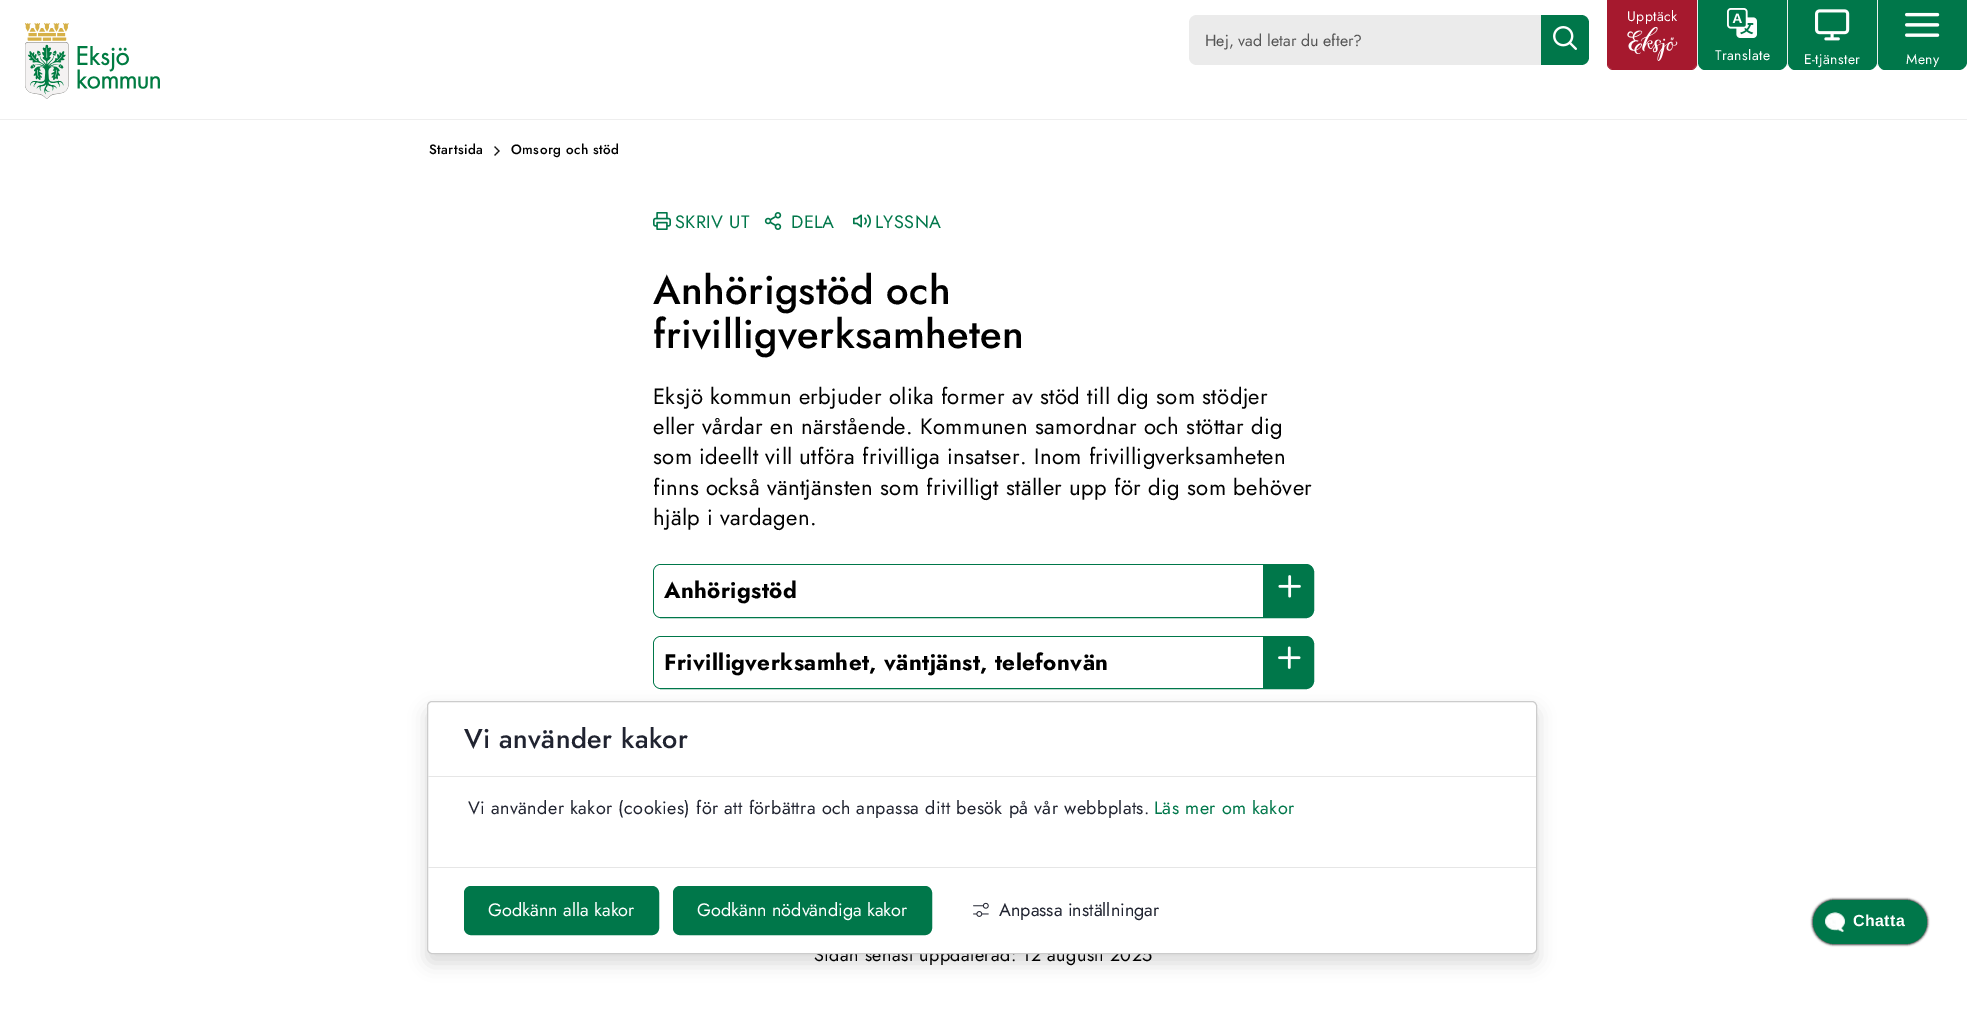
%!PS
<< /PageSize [1967 1014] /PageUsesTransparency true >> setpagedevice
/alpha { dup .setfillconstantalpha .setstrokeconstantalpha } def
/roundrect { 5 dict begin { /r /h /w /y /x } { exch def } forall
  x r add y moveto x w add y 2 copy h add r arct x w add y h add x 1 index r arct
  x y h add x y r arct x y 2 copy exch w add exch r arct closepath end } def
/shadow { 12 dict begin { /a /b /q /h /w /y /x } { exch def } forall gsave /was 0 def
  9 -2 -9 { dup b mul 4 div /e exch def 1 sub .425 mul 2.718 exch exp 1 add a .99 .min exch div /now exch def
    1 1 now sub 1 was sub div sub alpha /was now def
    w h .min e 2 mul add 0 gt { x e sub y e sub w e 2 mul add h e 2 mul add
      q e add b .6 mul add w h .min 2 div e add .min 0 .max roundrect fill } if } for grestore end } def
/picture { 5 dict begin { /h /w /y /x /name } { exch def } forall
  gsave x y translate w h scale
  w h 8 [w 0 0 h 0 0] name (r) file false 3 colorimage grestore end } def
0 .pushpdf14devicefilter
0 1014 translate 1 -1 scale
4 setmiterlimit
1 setgray
0 0 1967 1014 rectfill
0.922 setgray
newpath 1197 15 moveto 1541 15 lineto 1541 65 lineto 1197 65 lineto 1192.5 65 1189 61.5 1189 57 curveto 1189 23 lineto 1189 18.5 1192.5 15 1197 15 curveto closepath fill
/Jost-Regular [16 0 0 -16 0 0] selectfont
0.333 setgray
1205 46 moveto (Hej, vad letar du efter?) show
0 0.467 0.29 setrgbcolor
newpath 1541 15 moveto 1581 15 lineto 1585.5 15 1589 18.5 1589 23 curveto 1589 57 lineto 1589 61.5 1585.5 65 1581 65 curveto 1541 65 lineto closepath fill
(img1.rgb) 1553 26 24 24 picture
0.651 0.098 0.18 setrgbcolor
newpath 1608 0 moveto 1696 0 lineto 1696 64 lineto 1696 67 1694 69 1691 69 curveto 1613 69 lineto 1610 69 1608 67 1608 64 curveto closepath fill
newpath 1607 0 moveto 1697 0 lineto 1697 64 lineto 1697 67 1694 70 1691 70 curveto 1613 70 lineto 1610 70 1607 67 1607 64 curveto closepath 1608 0 moveto 1696 0 lineto 1696 64 lineto 1696 67 1694 69 1691 69 curveto 1613 69 lineto 1610 69 1608 67 1608 64 curveto closepath eofill
/Jost-Regular [14 0 0 -14 0 0] selectfont
1 setgray
1627 21 moveto 0.4 0 (Upptäck) ashow
(img2.rgb) 1627 27 51 34 picture
0 0.467 0.29 setrgbcolor
newpath 1698 0 moveto 1787 0 lineto 1787 62 lineto 1787 66 1783 70 1779 70 curveto 1705 70 lineto 1701 70 1698 66 1698 62 curveto closepath fill
0.933 setgray
1697 0 1 66 rectfill
(img3.rgb) 1727 8 30 30 picture
1 setgray
1715 60 moveto 0.4 0 (Translate) ashow
0 0.467 0.29 setrgbcolor
newpath 1788 0 moveto 1877 0 lineto 1877 62 lineto 1877 66 1873 70 1869 70 curveto 1795 70 lineto 1791 70 1788 66 1788 62 curveto closepath fill
0.933 setgray
1787 0 1 66 rectfill
(img4.rgb) 1815 9 35 32 picture
1 setgray
1804 64 moveto 0.4 0 (E-tjänster) ashow
0 0.467 0.29 setrgbcolor
newpath 1878 0 moveto 1967 0 lineto 1967 62 lineto 1967 66 1963 70 1959 70 curveto 1885 70 lineto 1881 70 1878 66 1878 62 curveto closepath fill
0.933 setgray
1877 0 1 66 rectfill
(img5.rgb) 1905 12 35 25 picture
1 setgray
1906 64 moveto 0.4 0 (Meny) ashow
/Jost-Medium [13.5 0 0 -13.5 0 0] selectfont
0 setgray
429 154 moveto 0.4 0 (Startsida) ashow
(img6.rgb) 494 146 6 10 picture
511 154 moveto 0.4 0 (Omsorg och stöd) ashow
(img7.rgb) 653 212 18 18 picture
/Jost-Regular [18 0 0 -18 0 0] selectfont
0 0.467 0.29 setrgbcolor
675 228 moveto 0.4 0 (SKRIV UT) ashow
(img8.rgb) 764 212 18 18 picture
791 228 moveto 0.4 0 (DELA) ashow
(img9.rgb) 853 214 18 14 picture
875 228 moveto 0.4 0 (LYSSNA) ashow
/Jost-Medium [40 0 0 -40 0 0] selectfont
0 setgray
653 304 moveto 0.4 0 (Anhörigstöd och) ashow
653 348 moveto 0.4 0 (frivilligverksamheten) ashow
/Jost-Regular [22 0 0 -22 0 0] selectfont
653 404 moveto 0.4 0 (Eksjö kommun erbjuder olika former av stöd till dig som stödjer) ashow
653 434 moveto 0.4 0 (eller vårdar en närstående. Kommunen samordnar och stöttar dig) ashow
653 464 moveto 0.4 0 (som ideellt vill utföra frivilliga insatser. Inom frivilligverksamheten) ashow
653 495 moveto 0.4 0 (finns också väntjänsten som frivilligt ställer upp för dig som behöver) ashow
653 525 moveto 0.4 0 (hjälp i vardagen.) ashow
0 0.467 0.29 setrgbcolor
653.5 564.5 660 53 7.5 roundrect gsave fill grestore
stroke
1 setgray
newpath 661 565 moveto 1263 565 lineto 1263 617 lineto 661 617 lineto 657 617 654 614 654 610 curveto 654 572 lineto 654 568 657 565 661 565 curveto closepath fill
/Jost-Bold [22.4 0 0 -22.4 0 0] selectfont
0 setgray
664 598 moveto 0.4 0 (Anhörigstöd) ashow
(img10.rgb) 1278 575 23 23 picture
0 0.467 0.29 setrgbcolor
653.5 636.5 660 52 7.5 roundrect gsave fill grestore
stroke
1 setgray
newpath 661 637 moveto 1263 637 lineto 1263 688 lineto 661 688 lineto 657 688 654 685 654 681 curveto 654 644 lineto 654 640 657 637 661 637 curveto closepath fill
0 setgray
664 670 moveto 0.4 0 (Frivilligverksamhet, väntjänst, telefonvän) ashow
(img11.rgb) 1278 646 23 23 picture
/Jost-Regular [18 0 0 -18 0 0] selectfont
814 961 moveto 0.4 0 (Sidan senast uppdaterad: 12 augusti 2025) ashow
0.933 setgray
0 119 1967 1 rectfill
(img12.rgb) 25 23 135 76 picture
0 setgray
427 710 1110 253 5 9 0.15 shadow
1 setgray
427.5 701.5 1109 252 4.5 roundrect gsave fill grestore
0.8 setgray
stroke
0.902 setgray
428 776 1108 1 rectfill
/Jost-Medium [27 0 0 -27 0 0] selectfont
0.125 0.137 0.188 setrgbcolor
464 748 moveto 0.4 0 (Vi använder kakor) ashow
/Jost-Regular [18 0 0 -18 0 0] selectfont
468 814 moveto 0.4 0 (Vi använder kakor \(cookies\) för att förbättra och anpassa ditt besök på vår webbplats.) ashow
0 0.467 0.29 setrgbcolor
1154 814 moveto 0.4 0 (Läs mer om kakor) ashow
0.902 setgray
428 867 1108 1 rectfill
0 0.467 0.29 setrgbcolor
464.5 886.5 194 48 6.5 roundrect gsave fill grestore
stroke
1 setgray
488 916 moveto (Godkänn alla kakor) show
0 0.467 0.29 setrgbcolor
673.5 886.5 258 48 6.5 roundrect gsave fill grestore
stroke
1 setgray
697 916 moveto (Godkänn nödvändiga kakor) show
(img13.rgb) 973 902 16 15 picture
0.125 0.137 0.188 setrgbcolor
999 916 moveto (Anpassa inställningar) show
0.267 setgray
1812 899 116 46 23 1 1 shadow
0 0.467 0.29 setrgbcolor
1813 900 114 44 22 roundrect fill
(img14.rgb) 1825 912 20 20 picture
/LiberationSans-Bold [16 0 0 -16 0 0] selectfont
1 setgray
1853 926 moveto 0.4 0 (Chatta) ashow
.poppdf14devicefilter showpage
